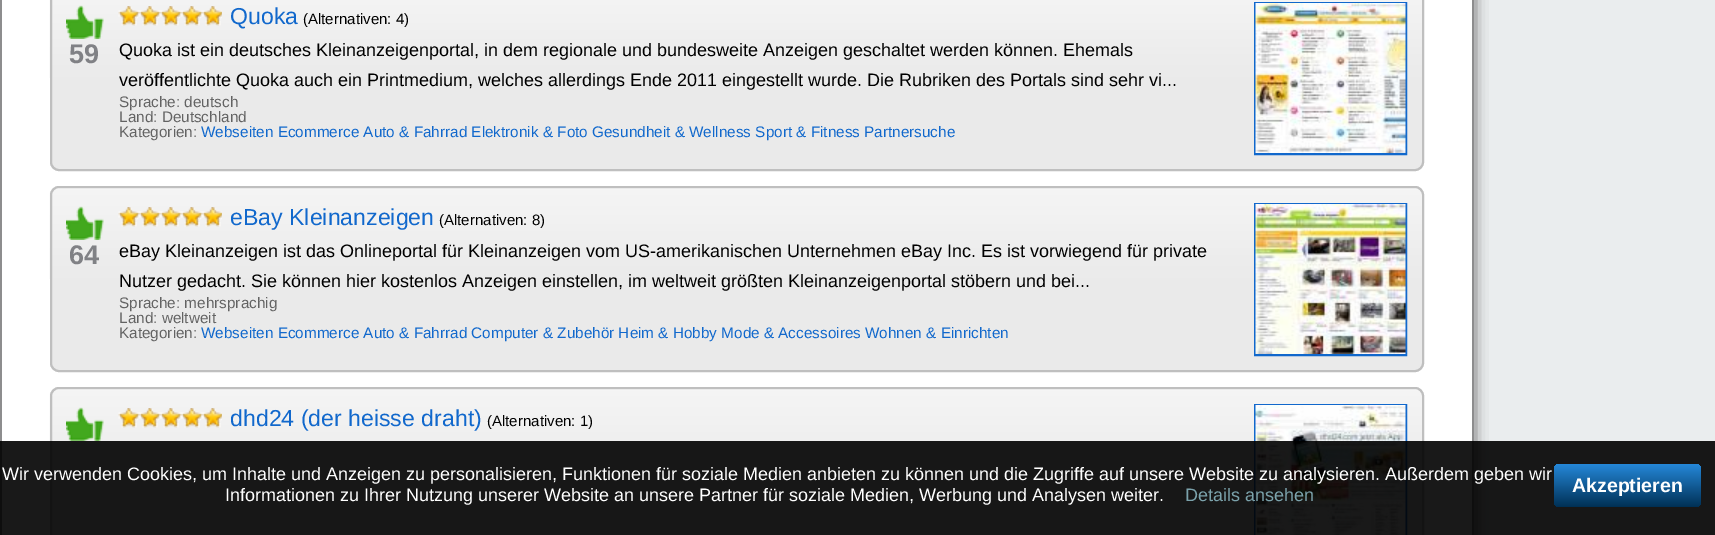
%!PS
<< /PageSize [1715 535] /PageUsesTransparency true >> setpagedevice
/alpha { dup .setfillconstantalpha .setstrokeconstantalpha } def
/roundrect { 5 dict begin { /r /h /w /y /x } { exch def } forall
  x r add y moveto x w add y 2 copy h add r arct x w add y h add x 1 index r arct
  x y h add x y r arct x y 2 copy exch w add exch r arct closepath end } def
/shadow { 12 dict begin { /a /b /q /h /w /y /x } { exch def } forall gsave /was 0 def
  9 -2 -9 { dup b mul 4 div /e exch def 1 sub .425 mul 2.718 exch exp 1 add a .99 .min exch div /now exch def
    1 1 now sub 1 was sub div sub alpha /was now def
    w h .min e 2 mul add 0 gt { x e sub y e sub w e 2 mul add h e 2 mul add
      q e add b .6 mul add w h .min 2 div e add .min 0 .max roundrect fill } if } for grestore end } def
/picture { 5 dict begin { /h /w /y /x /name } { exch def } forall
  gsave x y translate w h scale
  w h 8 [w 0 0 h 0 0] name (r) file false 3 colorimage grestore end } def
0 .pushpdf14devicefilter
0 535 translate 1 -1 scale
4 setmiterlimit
0.918 0.929 0.933 setrgbcolor
0 0 1715 535 rectfill
0.169 setgray
2 -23 1470 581 0 7.5 1 shadow
1 setgray
2 0 1470 535 rectfill
0.918 setgray
50 -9 1374 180 9 roundrect fill
(img1.rgb) 49 0 1373 78 picture
0.749 setgray
2 setlinewidth
51 -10 1372 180 8 roundrect stroke
(img2.rgb) 66 5 38 34 picture
/LiberationSans-Bold [27 0 0 -27 0 0] selectfont
0.502 0.506 0.522 setrgbcolor
69 63 moveto (59) show
(img3.rgb) 118 7 104 19 picture
(img4.rgb) 118 6 104 20 picture
/LiberationSans-Regular [23.1 0 0 -23.1 0 0] selectfont
0.067 0.408 0.8 setrgbcolor
230 24 moveto (Quoka) show
/LiberationSans-Regular [15 0 0 -15 0 0] selectfont
0 setgray
303 24 moveto (\(Alternativen: 4\)) show
0.067 0.408 0.8 setrgbcolor
1255 3 151 151 rectstroke
(img5.rgb) 1255 3 151 150 picture
/LiberationSans-Regular [18 0 0 -18 0 0] selectfont
0 setgray
119 56 moveto (Quoka ist ein deutsches Kleinanzeigenportal, in dem regionale und bundesweite Anzeigen geschaltet werden können. Ehemals) show
119 86 moveto (veröffentlichte Quoka auch ein Printmedium, welches allerdings Ende 2011 eingestellt wurde. Die Rubriken des Portals sind sehr vi...) show
/LiberationSans-Regular [15.3 0 0 -15.3 0 0] selectfont
0.388 setgray
119 107 moveto (Sprache: deutsch) show
119 122 moveto (Land: Deutschland) show
119 137 moveto (Kategorien:) show
0.067 0.408 0.8 setrgbcolor
201 137 moveto (Webseiten Ecommerce Auto & Fahrrad Elektronik & Foto Gesundheit & Wellness Sport & Fitness Partnersuche) show
0.918 setgray
50 186 1374 186 9 roundrect fill
(img6.rgb) 49 187 1374 92 picture
0.749 setgray
51 187 1372 184 8 roundrect stroke
(img2.rgb) 66 206 38 34 picture
/LiberationSans-Bold [27 0 0 -27 0 0] selectfont
0.502 0.506 0.522 setrgbcolor
69 264 moveto (64) show
(img7.rgb) 118 208 104 19 picture
(img8.rgb) 118 207 104 20 picture
/LiberationSans-Regular [23.1 0 0 -23.1 0 0] selectfont
0.067 0.408 0.8 setrgbcolor
230 225 moveto (eBay Kleinanzeigen) show
/LiberationSans-Regular [15 0 0 -15 0 0] selectfont
0 setgray
439 225 moveto (\(Alternativen: 8\)) show
0.067 0.408 0.8 setrgbcolor
1255 204 151 151 rectstroke
(img9.rgb) 1255 204 151 150 picture
/LiberationSans-Regular [18 0 0 -18 0 0] selectfont
0 setgray
119 257 moveto (eBay Kleinanzeigen ist das Onlineportal für Kleinanzeigen vom US-amerikanischen Unternehmen eBay Inc. Es ist vorwiegend für private) show
119 287 moveto (Nutzer gedacht. Sie können hier kostenlos Anzeigen einstellen, im weltweit größten Kleinanzeigenportal stöbern und bei...) show
/LiberationSans-Regular [15.3 0 0 -15.3 0 0] selectfont
0.388 setgray
119 308 moveto (Sprache: mehrsprachig) show
119 323 moveto (Land: weltweit) show
119 338 moveto (Kategorien:) show
0.067 0.408 0.8 setrgbcolor
201 338 moveto (Webseiten Ecommerce Auto & Fahrrad Computer & Zubehör Heim & Hobby Mode & Accessoires Wohnen & Einrichten) show
0.918 setgray
50 387 1374 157 9 roundrect fill
(img6.rgb) 49 388 1374 92 picture
0.749 setgray
51 388 1372 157 8 roundrect stroke
(img2.rgb) 66 407 38 34 picture
(img10.rgb) 118 409 104 19 picture
(img11.rgb) 118 408 104 20 picture
/LiberationSans-Regular [23.1 0 0 -23.1 0 0] selectfont
0.067 0.408 0.8 setrgbcolor
230 426 moveto (dhd24 \(der heisse draht\)) show
/LiberationSans-Regular [15 0 0 -15 0 0] selectfont
0 setgray
487 426 moveto (\(Alternativen: 1\)) show
0.067 0.408 0.8 setrgbcolor
1255 405 151 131 rectstroke
(img12.rgb) 1255 405 151 130 picture
0.9 alpha
0 setgray
0 441 1715 94 rectfill
/LiberationSans-Regular [18 0 0 -18 0 0] selectfont
1 alpha
1 setgray
2 480 moveto (Wir verwenden Cookies, um Inhalte und Anzeigen zu personalisieren, Funktionen für soziale Medien anbieten zu können und die Zugriffe auf unsere Website zu analysieren. Außerdem geben wir) show
225 501 moveto (Informationen zu Ihrer Nutzung unserer Website an unsere Partner für soziale Medien, Werbung und Analysen weiter.) show
0.482 0.635 0.671 setrgbcolor
1185 501 moveto (Details ansehen) show
gsave 1554 464 147 43 5 roundrect clip newpath
<< /ShadingType 2 /ColorSpace /DeviceRGB /Coords [1554 464 1554 507] /Extend [true true] /Function << /FunctionType 2 /Domain [0 1] /C0 [0.145 0.533 0.851] /C1 [0 0.188 0.333] /N 1 >> >> shfill grestore
/LiberationSans-Bold [19.5 0 0 -19.5 0 0] selectfont
1 setgray
1572 492 moveto (Akzeptieren) show
.poppdf14devicefilter showpage
